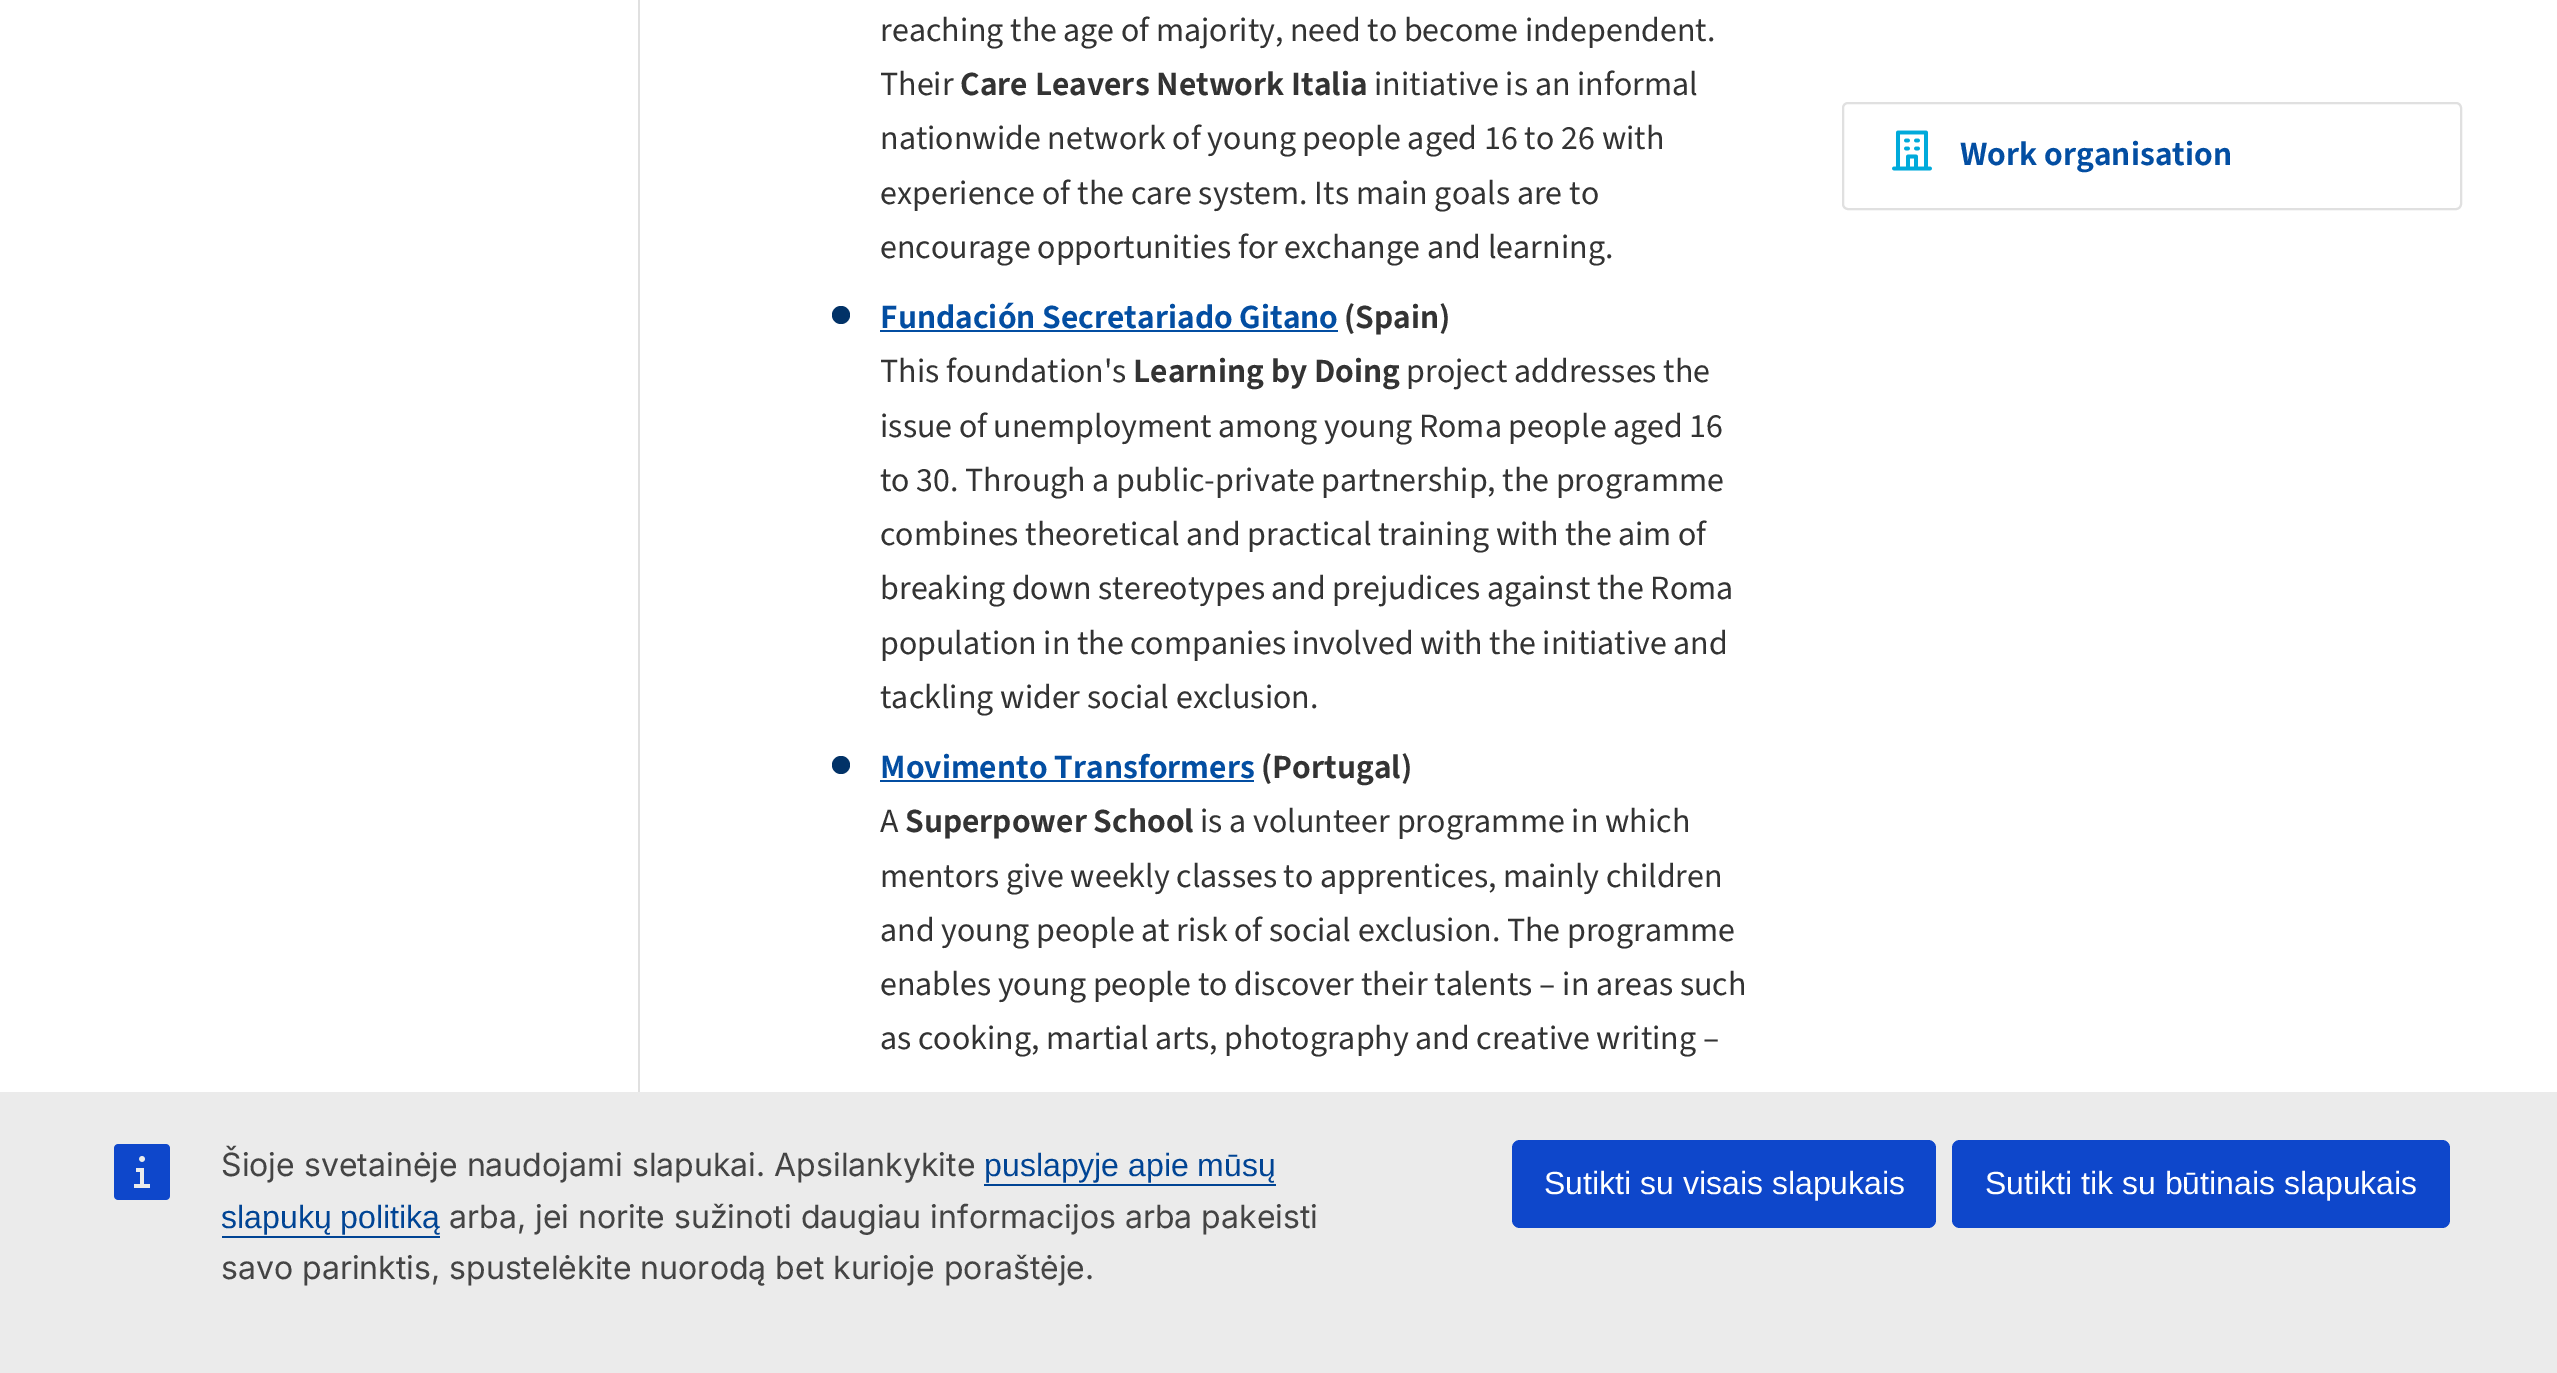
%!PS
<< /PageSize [2557 1373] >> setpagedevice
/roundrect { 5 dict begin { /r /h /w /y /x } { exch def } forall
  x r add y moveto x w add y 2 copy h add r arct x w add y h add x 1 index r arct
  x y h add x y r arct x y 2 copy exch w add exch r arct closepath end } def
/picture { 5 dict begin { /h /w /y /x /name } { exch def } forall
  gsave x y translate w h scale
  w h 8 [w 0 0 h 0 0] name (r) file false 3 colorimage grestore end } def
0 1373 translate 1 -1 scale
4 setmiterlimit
1 setgray
0 0 2557 1373 rectfill
0.878 setgray
638 0 2 1092 rectfill
/SourceSans3-Regular [33.9 0 0 -33.9 0 0] selectfont
0.2 setgray
880 41 moveto -0.25 0 32 (reaching the age of majority, need to become independent.) widthshow
880 95 moveto (Their) show
/SourceSans3-SemiBold [33.9 0 0 -33.9 0 0] selectfont
960 95 moveto (Care Leavers Network Italia) show
/SourceSans3-Regular [33.9 0 0 -33.9 0 0] selectfont
1374 95 moveto (initiative is an informal) show
880 149 moveto (nationwide network of young people aged 16 to 26 with) show
880 204 moveto (experience of the care system. Its main goals are to) show
880 258 moveto (encourage opportunities for exchange and learning.) show
0.008 0.196 0.404 setrgbcolor
newpath 841 315 9 0 360 arc closepath fill
/SourceSans3-SemiBold [33.9 0 0 -33.9 0 0] selectfont
0.012 0.306 0.635 setrgbcolor
880 328 moveto (Fundación Secretariado Gitano) show
880 330 458 2 rectfill
0.2 setgray
1344 328 moveto (\(Spain\)) show
/SourceSans3-Regular [33.9 0 0 -33.9 0 0] selectfont
880 382 moveto (This foundation's) show
/SourceSans3-SemiBold [33.9 0 0 -33.9 0 0] selectfont
1133 382 moveto (Learning by Doing) show
/SourceSans3-Regular [33.9 0 0 -33.9 0 0] selectfont
1406 382 moveto (project addresses the) show
880 437 moveto -0.25 0 32 (issue of unemployment among young Roma people aged 16) widthshow
880 491 moveto -0.25 0 32 (to 30. Through a public-private partnership, the programme) widthshow
880 545 moveto -0.25 0 32 (combines theoretical and practical training with the aim of) widthshow
880 599 moveto -0.25 0 32 (breaking down stereotypes and prejudices against the Roma) widthshow
880 654 moveto -0.25 0 32 (population in the companies involved with the initiative and) widthshow
880 708 moveto (tackling wider social exclusion.) show
0.008 0.196 0.404 setrgbcolor
newpath 841 765 9 0 360 arc closepath fill
/SourceSans3-SemiBold [33.9 0 0 -33.9 0 0] selectfont
0.012 0.306 0.635 setrgbcolor
880 778 moveto (Movimento Transformers) show
880 780 374 2 rectfill
0.2 setgray
1261 778 moveto (\(Portugal\)) show
/SourceSans3-Regular [33.9 0 0 -33.9 0 0] selectfont
880 832 moveto (A) show
/SourceSans3-SemiBold [33.9 0 0 -33.9 0 0] selectfont
905 832 moveto (Superpower School) show
/SourceSans3-Regular [33.9 0 0 -33.9 0 0] selectfont
1200 832 moveto (is a volunteer programme in which) show
880 887 moveto -0.25 0 32 (mentors give weekly classes to apprentices, mainly children) widthshow
880 941 moveto -0.1 0 32 (and young people at risk of social exclusion. The programme) widthshow
880 995 moveto (enables young people to discover their talents – in areas such) show
880 1049 moveto -0.25 0 32 (as cooking, martial arts, photography and creative writing –) widthshow
0.878 setgray
2 setlinewidth
1843 103 618 106 5 roundrect stroke
(img1.rgb) 1892 130 40 41 picture
/SourceSans3-SemiBold [33.9 0 0 -33.9 0 0] selectfont
0.012 0.306 0.635 setrgbcolor
1960 165 moveto (Work organisation) show
0.922 setgray
0 1092 2557 281 rectfill
(img2.rgb) 114 1144 56 56 picture
/Inter-Regular [32 0 0 -32 0 0] selectfont
0.267 setgray
221 1176 moveto (Šioje svetainėje naudojami slapukai. Apsilankykite) show
/LiberationSans-Regular [32 0 0 -32 0 0] selectfont
0 0.267 0.58 setrgbcolor
984 1176 moveto (puslapyje apie mūsų) show
984 1184 292 2 rectfill
221 1228 moveto (slapukų politiką) show
222 1236 218 2 rectfill
/Inter-Regular [32 0 0 -32 0 0] selectfont
0.267 setgray
449 1228 moveto (arba, jei norite sužinoti daugiau informacijos arba pakeisti) show
221 1279 moveto (savo parinktis, spustelėkite nuorodą bet kurioje poraštėje.) show
0.055 0.278 0.796 setrgbcolor
1512 1140 424 88 8 roundrect fill
/LiberationSans-Regular [32 0 0 -32 0 0] selectfont
1 setgray
1544 1194 moveto (Sutikti su visais slapukais) show
0.055 0.278 0.796 setrgbcolor
1952 1140 498 88 8 roundrect fill
1 setgray
1985 1194 moveto (Sutikti tik su būtinais slapukais) show
showpage
